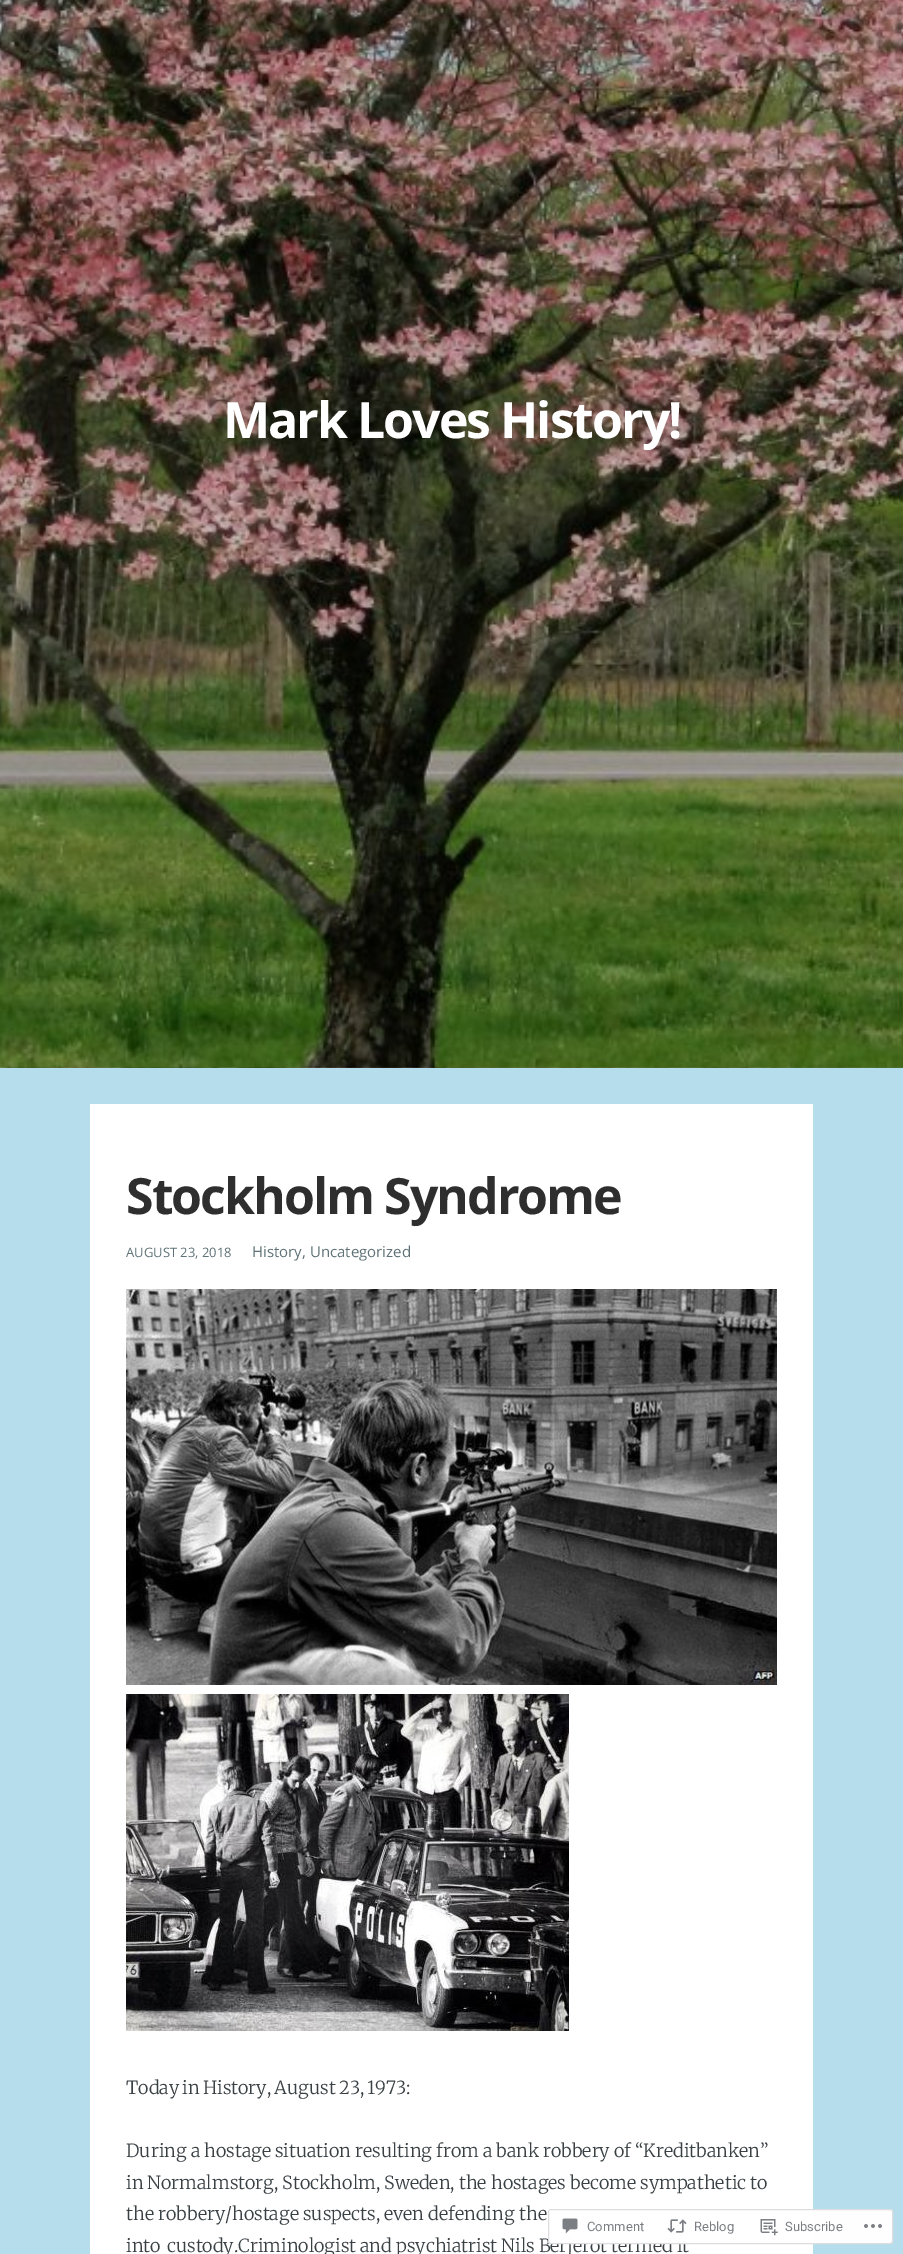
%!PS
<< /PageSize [903 2254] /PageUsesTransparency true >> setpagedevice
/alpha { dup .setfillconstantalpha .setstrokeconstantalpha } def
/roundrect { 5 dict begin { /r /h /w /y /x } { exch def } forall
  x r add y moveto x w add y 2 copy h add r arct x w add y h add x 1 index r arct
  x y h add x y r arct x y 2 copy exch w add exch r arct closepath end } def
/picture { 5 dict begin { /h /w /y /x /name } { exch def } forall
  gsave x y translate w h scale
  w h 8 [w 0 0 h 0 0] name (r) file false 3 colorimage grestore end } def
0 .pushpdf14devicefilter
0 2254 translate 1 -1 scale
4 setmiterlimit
0.714 0.867 0.925 setrgbcolor
0 0 903 2254 rectfill
(img1.rgb) 0 0 903 1068 picture
/OpenSans-Bold [50 0 0 -50 0 0] selectfont
1 setgray
223 438 moveto -2 0 (Mark Loves History!) ashow
90 1104 723 1150 rectfill
0.18 setgray
126 1214 moveto -2 0 (Stockholm Syndrome) ashow
/OpenSans-Regular [13 0 0 -13 0 0] selectfont
0.369 0.447 0.467 setrgbcolor
126 1257 moveto (AUGUST 23, 2018) show
/OpenSans-Regular [15 0 0 -15 0 0] selectfont
252 1257 moveto (History, Uncategorized) show
(img2.rgb) 126 1289 651 396 picture
(img3.rgb) 126 1694 443 337 picture
/Merriweather-Light [18 0 0 -18 0 0] selectfont
0.227 0.255 0.271 setrgbcolor
126 2094 moveto -1 0 32 (Today in History, August 23, 1973:) widthshow
126 2157 moveto -0.25 0 32 (During a hostage situation resulting from a bank robbery of “Kreditbanken”) widthshow
126 2189 moveto -0.25 0 32 (in Normalmstorg, Stockholm, Sweden, the hostages become sympathetic to) widthshow
126 2220 moveto (the robbery/hostage suspects, even defending the) show
126 2252 moveto 2 0 32 (into custody.) widthshow
238 2252 moveto -0.25 0 32 (Criminologist and psychiatrist Nils Berjerot termed it) widthshow
0.98 alpha
1 setgray
548 2209 345 35 3 roundrect fill
0.863 0.863 0.871 setrgbcolor
548.5 2209.5 344 34 2.5 roundrect stroke
1 alpha
(img4.rgb) 562 2218 16 16 picture
/Roboto-Regular [13 0 0 -13 0 0] selectfont
0.482 0.498 0.518 setrgbcolor
587 2231 moveto (Comment) show
(img5.rgb) 667 2219 20 14 picture
694 2231 moveto (Reblog) show
(img6.rgb) 760 2219 18 17 picture
785 2231 moveto (Subscribe) show
(img7.rgb) 864 2224 18 4 picture
.poppdf14devicefilter showpage
